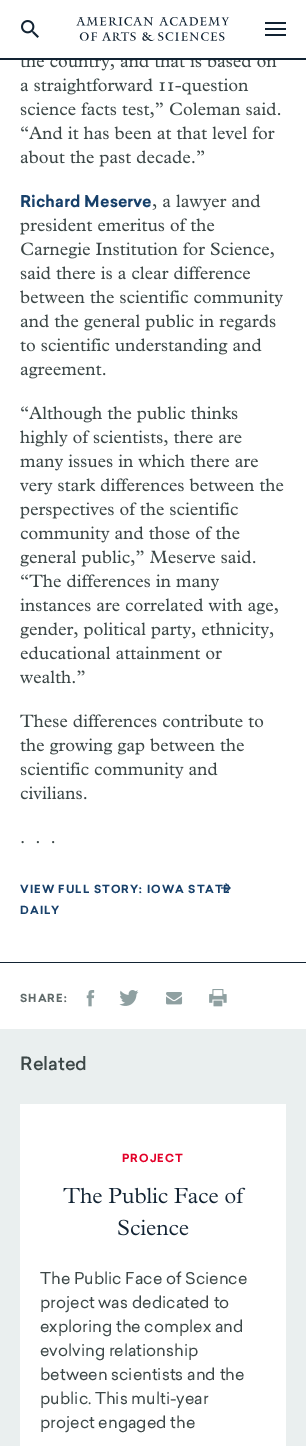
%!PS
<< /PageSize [306 1446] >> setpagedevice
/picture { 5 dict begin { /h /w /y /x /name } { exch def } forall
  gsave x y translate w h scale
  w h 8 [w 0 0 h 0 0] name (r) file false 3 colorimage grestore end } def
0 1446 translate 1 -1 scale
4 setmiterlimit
1 setgray
0 0 306 1446 rectfill
0.071 0.137 0.2 setrgbcolor
0 58 306 2 rectfill
(img1.rgb) 21 20 18 18 picture
(img2.rgb) 76 17 154 24 picture
(img3.rgb) 265 22 21 14 picture
(img4.rgb) 21 60 256 11 picture
(img5.rgb) 20 78 229 17 picture
(img6.rgb) 20 102 261 16 picture
(img7.rgb) 21 126 254 14 picture
(img8.rgb) 20 150 185 17 picture
/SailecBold-Regular [16 0 0 -16 0 0] selectfont
0.09 0.251 0.416 setrgbcolor
20 207 moveto (Richard Meserve) show
(img9.rgb) 152 194 109 17 picture
(img10.rgb) 20 218 195 17 picture
(img11.rgb) 21 242 253 17 picture
(img12.rgb) 20 266 230 14 picture
(img13.rgb) 20 290 263 17 picture
(img14.rgb) 20 314 256 17 picture
(img15.rgb) 20 338 242 17 picture
(img16.rgb) 20 365 86 14 picture
(img17.rgb) 21 406 217 17 picture
(img18.rgb) 20 430 222 17 picture
(img19.rgb) 20 454 238 17 picture
(img20.rgb) 20 478 264 17 picture
(img21.rgb) 20 502 218 17 picture
(img22.rgb) 20 526 220 17 picture
(img23.rgb) 20 550 236 17 picture
(img24.rgb) 21 574 199 17 picture
(img25.rgb) 20 598 258 17 picture
(img26.rgb) 20 622 254 17 picture
(img27.rgb) 20 646 202 14 picture
(img28.rgb) 20 670 65 14 picture
(img29.rgb) 20 714 244 14 picture
(img30.rgb) 20 738 224 17 picture
(img31.rgb) 20 762 198 17 picture
(img32.rgb) 20 786 67 14 picture
(img33.rgb) 21 841 34 3 picture
(img34.rgb) 221 883 10 10 picture
/SailecBold-Regular [11 0 0 -11 0 0] selectfont
20 893 moveto 1 0 (VIEW FULL STORY: IOWA STATE) ashow
20 914 moveto 1 0 (DAILY) ashow
0.071 0.137 0.2 setrgbcolor
0 962 306 1 rectfill
0.373 0.412 0.412 setrgbcolor
20 1002 moveto 1 0 (SHARE:) ashow
(img35.rgb) 86 990 9 17 picture
(img36.rgb) 119 990 20 16 picture
(img37.rgb) 166 992 17 13 picture
(img38.rgb) 209 989 18 18 picture
0.918 0.937 0.937 setrgbcolor
0 1029 306 417 rectfill
/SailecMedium-Regular [18 0 0 -18 0 0] selectfont
0.235 0.278 0.278 setrgbcolor
20 1070 moveto (Related) show
1 setgray
20 1104 266 342 rectfill
/SailecBold-Regular [11 0 0 -11 0 0] selectfont
0.89 0 0.157 setrgbcolor
122 1162 moveto 1 0 (PROJECT) ashow
(img39.rgb) 63 1187 183 17 picture
(img40.rgb) 118 1219 71 17 picture
/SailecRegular-Regular [16 0 0 -16 0 0] selectfont
0.235 0.278 0.278 setrgbcolor
40 1284 moveto (The Public Face of Science) show
40 1308 moveto (project was dedicated to) show
40 1332 moveto (exploring the complex and) show
40 1356 moveto (evolving relationship) show
40 1380 moveto (between scientists and the) show
40 1404 moveto (public. This multi-year) show
40 1428 moveto (project engaged the) show
showpage
